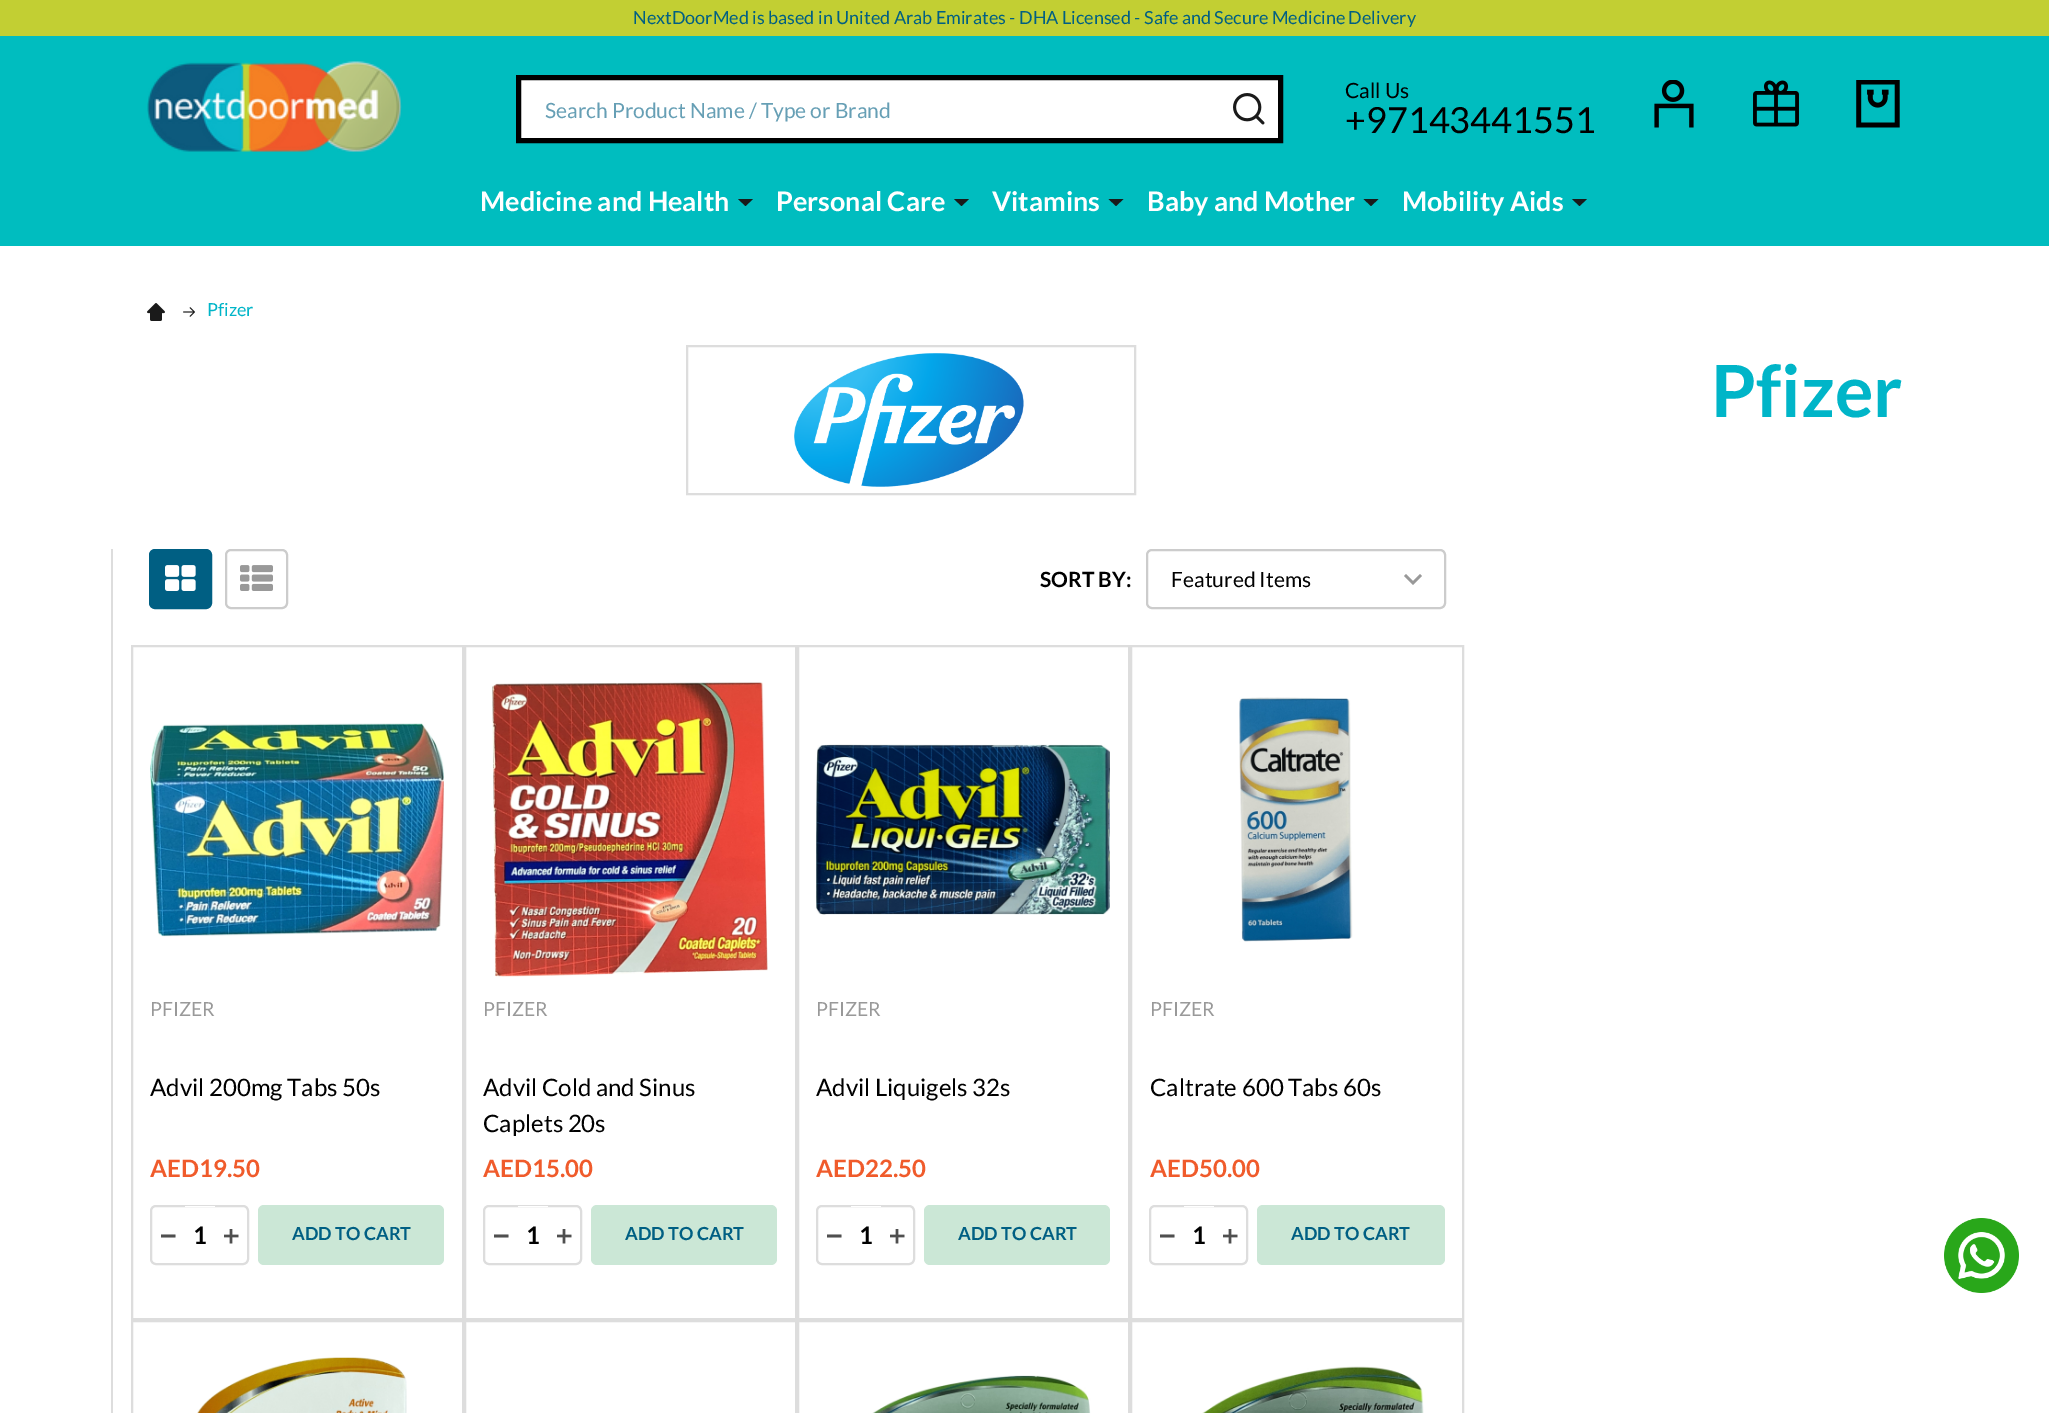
%!PS
<< /PageSize [2049 1413] >> setpagedevice
/roundrect { 5 dict begin { /r /h /w /y /x } { exch def } forall
  x r add y moveto x w add y 2 copy h add r arct x w add y h add x 1 index r arct
  x y h add x y r arct x y 2 copy exch w add exch r arct closepath end } def
/picture { 5 dict begin { /h /w /y /x /name } { exch def } forall
  gsave x y translate w h scale
  w h 8 [w 0 0 h 0 0] name (r) file false 3 colorimage grestore end } def
0 1413 translate 1 -1 scale
4 setmiterlimit
1 setgray
0 0 2049 1413 rectfill
0 0.741 0.749 setrgbcolor
0 36 2049 210 rectfill
0.761 0.812 0.2 setrgbcolor
0 0 2049 36 rectfill
/Lato-Regular [18 0 0 -18 0 0] selectfont
0 0.373 0.514 setrgbcolor
633 24 moveto (NextDoorMed is based in United Arab Emirates - DHA Licensed - Safe and Secure Medicine Delivery) show
(img1.rgb) 147 61 255 91 picture
1 setgray
newpath 518.5 77.5 moveto 1280.5 77.5 lineto 1280.5 140.5 lineto 518.5 140.5 lineto closepath gsave fill grestore
0 setgray
5 setlinewidth
stroke
/Lato-Regular [21 0 0 -21 0 0] selectfont
0.4 0.624 0.71 setrgbcolor
545 118 moveto (Search Product Name / Type or Brand) show
(img2.rgb) 1233 93 32 32 picture
0 setgray
1345 98 moveto (Call Us) show
/Lato-Regular [36 0 0 -36 0 0] selectfont
1345 133 moveto (+97143441551) show
(img3.rgb) 1654 80 40 48 picture
(img4.rgb) 1753 80 46 47 picture
(img5.rgb) 1856 80 44 48 picture
/Lato-Bold [27 0 0 -27 0 0] selectfont
1 setgray
480 211 moveto (Medicine and Health) show
0.102 setgray
newpath 738 199 moveto 745.5 206 lineto 753 199 lineto closepath fill
1 setgray
776 211 moveto (Personal Care) show
0.102 setgray
newpath 954 199 moveto 961.5 206 lineto 969 199 lineto closepath fill
1 setgray
992 211 moveto (Vitamins) show
0.102 setgray
newpath 1108.5 199 moveto 1116 206 lineto 1123.5 199 lineto closepath fill
1 setgray
1147 211 moveto (Baby and Mother) show
0.102 setgray
newpath 1363.5 199 moveto 1371 206 lineto 1378.5 199 lineto closepath fill
1 setgray
1402 211 moveto (Mobility Aids) show
0.102 setgray
newpath 1572 199 moveto 1579.5 206 lineto 1587 199 lineto closepath fill
(img6.rgb) 147 303 18 18 picture
(img7.rgb) 183 307 12 10 picture
/Lato-Regular [18 0 0 -18 0 0] selectfont
0 0.71 0.784 setrgbcolor
207 316 moveto (Pfizer) show
0.867 setgray
2 setlinewidth
687 346 448 148 rectstroke
(img8.rgb) 794 353 230 134 picture
/Lato-Bold [72 0 0 -72 0 0] selectfont
0 0.71 0.784 setrgbcolor
1711 417 moveto (Pfizer) show
0.867 setgray
111 549 2 864 rectfill
0 0.373 0.514 setrgbcolor
150 550 61 58 5 roundrect gsave fill grestore
stroke
(img9.rgb) 165 565 31 26 picture
0.8 setgray
226 550 61 58 5 roundrect stroke
(img10.rgb) 240 565 33 26 picture
/Lato-Bold [21 0 0 -21 0 0] selectfont
0 setgray
1040 587 moveto (SORT BY:) show
0.6 setgray
newpath 1420 574 moveto 1413 581 lineto 1406 574 lineto 1404 576 lineto 1413 585 lineto 1422 576 lineto closepath fill
0.8 setgray
1147 550 298 58 5 roundrect stroke
/Lato-Regular [21 0 0 -21 0 0] selectfont
0 setgray
1171 587 moveto (Featured Items) show
0.867 setgray
132 646 331 673 rectstroke
(img11.rgb) 150 723 294 214 picture
/Lato-Regular [19.5 0 0 -19.5 0 0] selectfont
0.6 setgray
150 1016 moveto (PFIZER) show
/Lato-Regular [24 0 0 -24 0 0] selectfont
0 setgray
150 1096 moveto (Advil 200mg Tabs 50s) show
/Lato-Bold [24 0 0 -24 0 0] selectfont
0.941 0.357 0.169 setrgbcolor
150 1177 moveto (AED19.50) show
0.867 setgray
151 1206 97 58 5 roundrect stroke
gsave
161 1229 15 15 rectclip
0.31 setgray
newpath 160.5 1237.5 moveto 160.5 1234.5 lineto 175.5 1234.5 lineto 175.5 1237.5 lineto fill
grestore
1 setgray
185 1206 30 1 rectfill
0 setgray
193 1244 moveto (1) show
(img12.rgb) 224 1229 15 15 picture
0.796 0.906 0.839 setrgbcolor
258 1205 186 60 6 roundrect fill
/Lato-Bold [18 0 0 -18 0 0] selectfont
0 0.373 0.514 setrgbcolor
292 1240 moveto (ADD TO CART) show
0.867 setgray
465 646 331 673 rectstroke
(img13.rgb) 492 682 276 295 picture
/Lato-Regular [19.5 0 0 -19.5 0 0] selectfont
0.6 setgray
483 1016 moveto (PFIZER) show
/Lato-Regular [24 0 0 -24 0 0] selectfont
0 setgray
483 1096 moveto (Advil Cold and Sinus) show
483 1132 moveto (Caplets 20s) show
/Lato-Bold [24 0 0 -24 0 0] selectfont
0.941 0.357 0.169 setrgbcolor
483 1177 moveto (AED15.00) show
0.867 setgray
484 1206 97 58 5 roundrect stroke
gsave
494 1229 15 15 rectclip
0.31 setgray
newpath 493.5 1237.5 moveto 493.5 1234.5 lineto 508.5 1234.5 lineto 508.5 1237.5 lineto fill
grestore
1 setgray
518 1206 30 1 rectfill
0 setgray
526 1244 moveto (1) show
(img12.rgb) 557 1229 15 15 picture
0.796 0.906 0.839 setrgbcolor
591 1205 186 60 6 roundrect fill
/Lato-Bold [18 0 0 -18 0 0] selectfont
0 0.373 0.514 setrgbcolor
625 1240 moveto (ADD TO CART) show
0.867 setgray
798 646 331 673 rectstroke
(img14.rgb) 816 744 294 171 picture
/Lato-Regular [19.5 0 0 -19.5 0 0] selectfont
0.6 setgray
816 1016 moveto (PFIZER) show
/Lato-Regular [24 0 0 -24 0 0] selectfont
0 setgray
816 1096 moveto (Advil Liquigels 32s) show
/Lato-Bold [24 0 0 -24 0 0] selectfont
0.941 0.357 0.169 setrgbcolor
816 1177 moveto (AED22.50) show
0.867 setgray
817 1206 97 58 5 roundrect stroke
gsave
827 1229 15 15 rectclip
0.31 setgray
newpath 826.5 1237.5 moveto 826.5 1234.5 lineto 841.5 1234.5 lineto 841.5 1237.5 lineto fill
grestore
1 setgray
851 1206 30 1 rectfill
0 setgray
859 1244 moveto (1) show
(img12.rgb) 890 1229 15 15 picture
0.796 0.906 0.839 setrgbcolor
924 1205 186 60 6 roundrect fill
/Lato-Bold [18 0 0 -18 0 0] selectfont
0 0.373 0.514 setrgbcolor
958 1240 moveto (ADD TO CART) show
0.867 setgray
1131 646 332 673 rectstroke
(img15.rgb) 1239 697 114 245 picture
/Lato-Regular [19.5 0 0 -19.5 0 0] selectfont
0.6 setgray
1150 1016 moveto (PFIZER) show
/Lato-Regular [24 0 0 -24 0 0] selectfont
0 setgray
1150 1096 moveto (Caltrate 600 Tabs 60s) show
/Lato-Bold [24 0 0 -24 0 0] selectfont
0.941 0.357 0.169 setrgbcolor
1150 1177 moveto (AED50.00) show
0.867 setgray
1150 1206 97 58 5 roundrect stroke
gsave
1160 1229 15 15 rectclip
0.31 setgray
newpath 1159.5 1237.5 moveto 1159.5 1234.5 lineto 1174.5 1234.5 lineto 1174.5 1237.5 lineto fill
grestore
1 setgray
1184 1206 30 1 rectfill
0 setgray
1192 1244 moveto (1) show
(img12.rgb) 1223 1229 15 15 picture
0.796 0.906 0.839 setrgbcolor
1257 1205 188 60 6 roundrect fill
/Lato-Bold [18 0 0 -18 0 0] selectfont
0 0.373 0.514 setrgbcolor
1291 1240 moveto (ADD TO CART) show
0.867 setgray
132 1321 331 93 rectstroke
(img16.rgb) 197 1357 210 56 picture
465 1321 331 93 rectstroke
798 1321 331 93 rectstroke
(img17.rgb) 872 1375 219 38 picture
1131 1321 332 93 rectstroke
(img18.rgb) 1202 1366 222 47 picture
(img19.rgb) 1944 1218 75 75 picture
showpage
